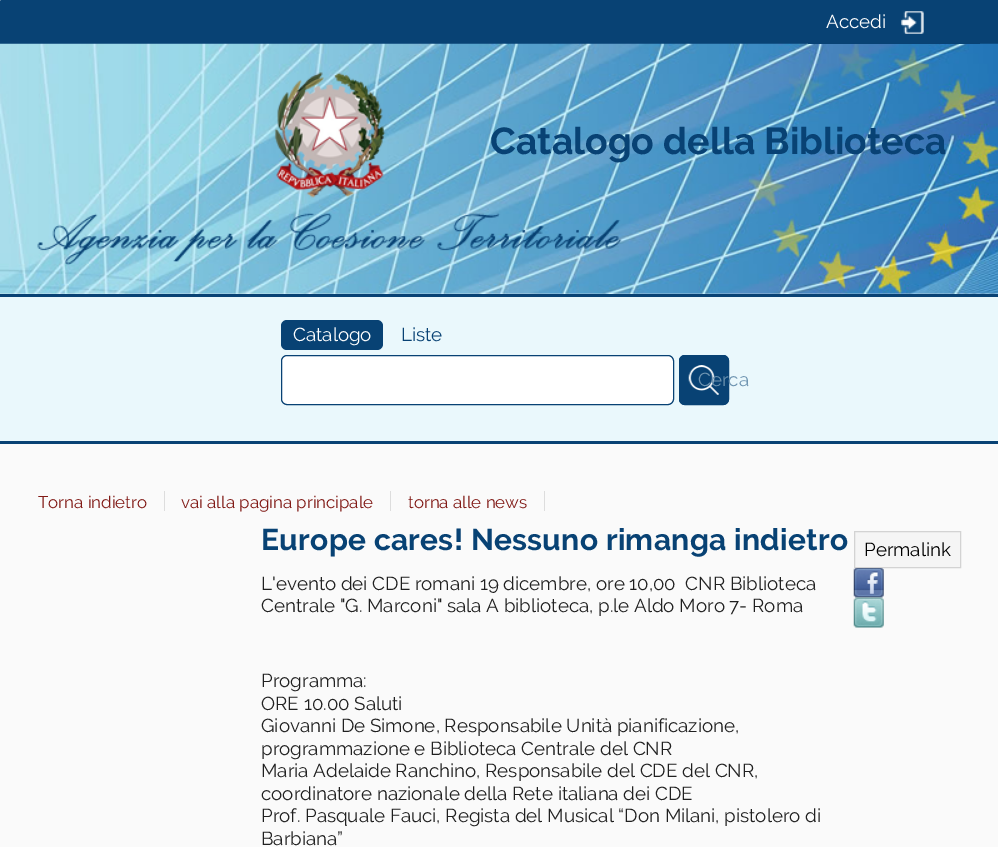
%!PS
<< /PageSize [998 847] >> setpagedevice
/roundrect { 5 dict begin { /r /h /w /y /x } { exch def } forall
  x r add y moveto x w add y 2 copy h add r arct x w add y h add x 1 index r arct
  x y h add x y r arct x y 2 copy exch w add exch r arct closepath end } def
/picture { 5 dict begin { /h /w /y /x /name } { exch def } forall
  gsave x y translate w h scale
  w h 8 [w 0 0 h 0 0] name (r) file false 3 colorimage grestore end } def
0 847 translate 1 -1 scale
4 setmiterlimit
0.98 setgray
0 0 998 847 rectfill
0.031 0.259 0.455 setrgbcolor
0 0 998 44 rectfill
0.322 0.482 0.62 setrgbcolor
0 0 1 1 rectfill
(img2.rgb) 0 43 998 251 picture
0.031 0.259 0.455 setrgbcolor
808 43 172 1 rectfill
(img1.rgb) 901 11 23 23 picture
/Raleway-Regular [18.75 0 0 -18.75 0 0] selectfont
1 setgray
826 28 moveto (Accedi) show
(img3.rgb) 37 72 585 193 picture
/Raleway-Bold [37.5 0 0 -37.5 0 0] selectfont
0.031 0.259 0.455 setrgbcolor
490 154 moveto (Catalogo della Biblioteca) show
0.918 0.973 0.988 setrgbcolor
0 297 998 144 rectfill
0.031 0.259 0.455 setrgbcolor
0 294 998 3 rectfill
0 441 998 3 rectfill
281 320 102 30 6 roundrect fill
/Raleway-Regular [18.75 0 0 -18.75 0 0] selectfont
1 setgray
293 341 moveto (Catalogo) show
0.031 0.259 0.455 setrgbcolor
401 341 moveto (Liste) show
1 setgray
281.5 355.5 392 49 5.5 roundrect gsave fill grestore
0.031 0.259 0.455 setrgbcolor
stroke
679 355 50 50 6 roundrect fill
(img4.rgb) 688 365 31 30 picture
679.5 355.5 49 49 5.5 roundrect stroke
0.431 0.58 0.694 setrgbcolor
698 386 moveto (Cerca) show
/Raleway-Regular [16.9 0 0 -16.9 0 0] selectfont
0.506 0.102 0.086 setrgbcolor
38 508 moveto (Torna indietro) show
0.867 setgray
164 491 1 20 rectfill
0.506 0.102 0.086 setrgbcolor
181 508 moveto (vai alla pagina principale) show
0.867 setgray
390 491 1 20 rectfill
0.506 0.102 0.086 setrgbcolor
408 508 moveto (torna alle news) show
0.867 setgray
544 491 1 20 rectfill
/Raleway-Bold [30 0 0 -30 0 0] selectfont
0.031 0.259 0.455 setrgbcolor
261 550 moveto 0.3 0 (Europe cares! Nessuno rimanga indietro) ashow
/Raleway-Regular [18.75 0 0 -18.75 0 0] selectfont
0.125 setgray
261 590 moveto (L'evento dei CDE romani 19 dicembre, ore 10,00  CNR Biblioteca) show
261 612 moveto (Centrale "G. Marconi" sala A biblioteca, p.le Aldo Moro 7- Roma) show
261 687 moveto (Programma:) show
261 710 moveto (ORE 10.00 Saluti) show
261 732 moveto (Giovanni De Simone, Responsabile Unità pianificazione,) show
261 755 moveto (programmazione e Biblioteca Centrale del CNR) show
261 777 moveto (Maria Adelaide Ranchino, Responsabile del CDE del CNR,) show
261 800 moveto (coordinatore nazionale della Rete italiana dei CDE) show
261 822 moveto (Prof. Pasquale Fauci, Regista del Musical “Don Milani, pistolero di) show
261 845 moveto (Barbiana”) show
0.961 setgray
newpath 854.5 531.5 moveto 960.5 531.5 lineto 960.5 567.5 lineto 854.5 567.5 lineto closepath gsave fill grestore
0.827 setgray
stroke
0 setgray
864 556 moveto (Permalink) show
(img5.rgb) 853 568 31 30 picture
(img6.rgb) 853 597 31 31 picture
showpage
